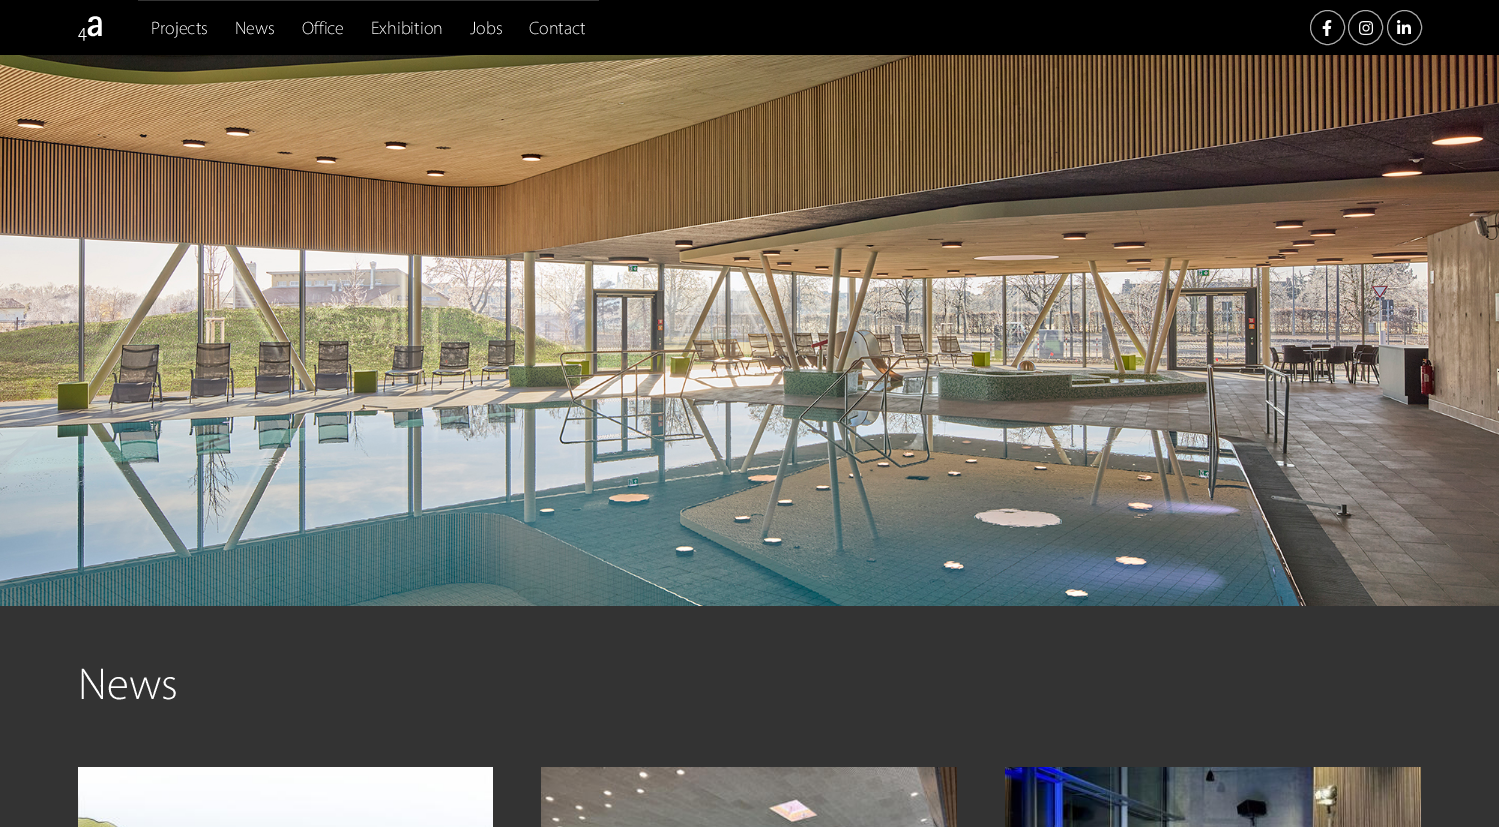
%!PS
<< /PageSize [1499 827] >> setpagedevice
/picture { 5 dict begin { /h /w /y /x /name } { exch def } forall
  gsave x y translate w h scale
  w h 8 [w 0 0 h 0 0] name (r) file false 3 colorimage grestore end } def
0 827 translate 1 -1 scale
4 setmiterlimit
0.2 setgray
0 0 1499 827 rectfill
0 setgray
0 0 1499 55 rectfill
(img1.rgb) 78 16 24 25 picture
0.2 setgray
138 0 461 1 rectfill
/myriad-Light [18 0 0 -18 0 0] selectfont
1 setgray
151 34 moveto (Projects) show
235 34 moveto (News) show
302 34 moveto (Office) show
371 34 moveto (Exhibition) show
470 34 moveto (Jobs) show
529 34 moveto (Contact) show
0.667 setgray
newpath 1327.5 27.5 17 0 360 arc closepath stroke
(img2.rgb) 1322 20 10 16 picture
newpath 1365.5 27.5 17 0 360 arc closepath stroke
(img3.rgb) 1359 21 15 14 picture
newpath 1404.5 27.5 17 0 360 arc closepath stroke
(img4.rgb) 1397 20 14 14 picture
(img5.rgb) 0 55 1499 551 picture
/myriad-Light [45 0 0 -45 0 0] selectfont
1 setgray
78 699 moveto (News) show
(img6.rgb) 78 767 415 60 picture
(img7.rgb) 541 767 416 60 picture
(img8.rgb) 1005 767 416 60 picture
showpage
